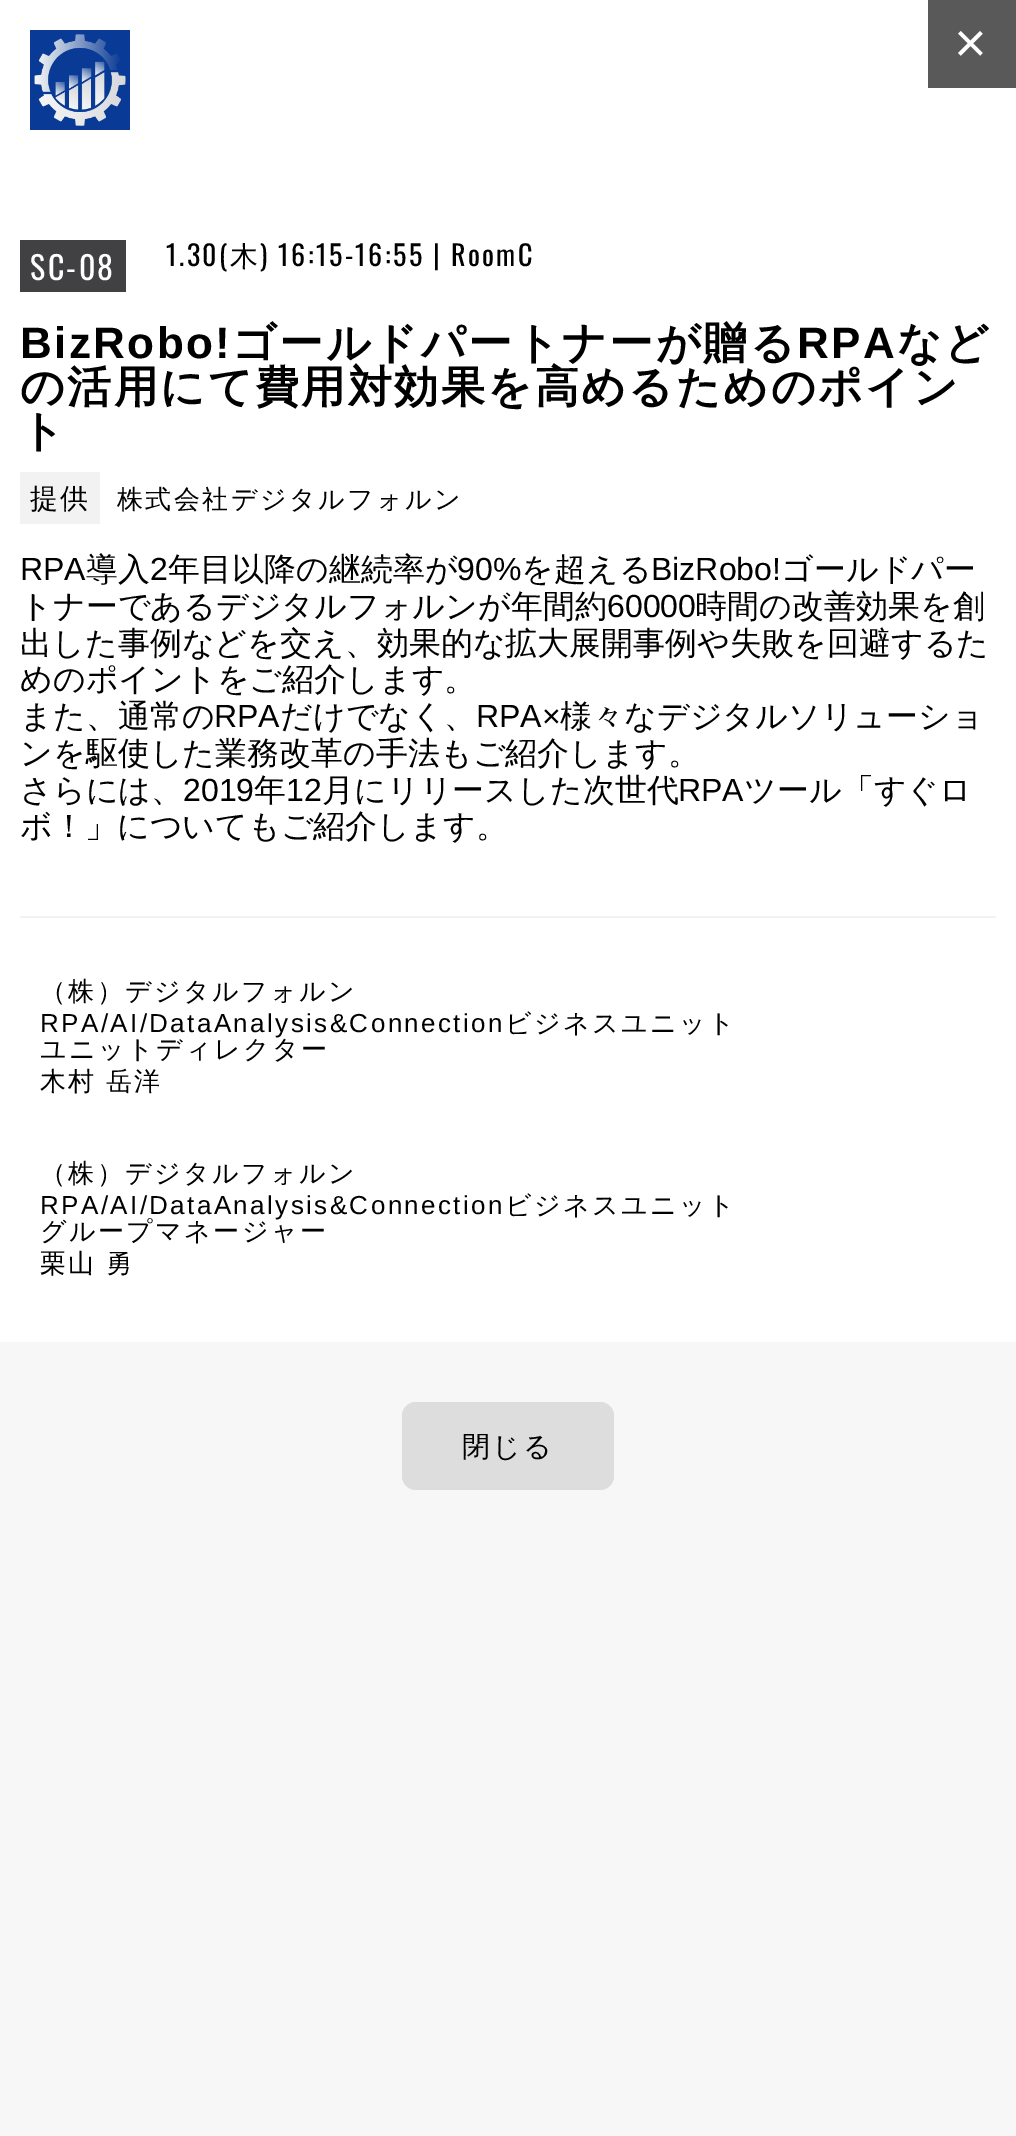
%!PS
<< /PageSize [1016 2136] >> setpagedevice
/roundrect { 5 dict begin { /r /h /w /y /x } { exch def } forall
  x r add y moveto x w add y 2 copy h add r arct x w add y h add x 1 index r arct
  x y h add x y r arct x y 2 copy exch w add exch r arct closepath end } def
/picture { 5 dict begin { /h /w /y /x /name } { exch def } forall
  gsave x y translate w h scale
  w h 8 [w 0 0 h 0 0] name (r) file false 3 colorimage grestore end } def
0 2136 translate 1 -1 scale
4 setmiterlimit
0.969 setgray
0 0 1016 2136 rectfill
1 setgray
0 0 1016 1342 rectfill
(img1.rgb) 30 30 100 100 picture
0.349 setgray
928 0 88 88 rectfill
/LiberationSans-Regular [56 0 0 -56 0 0] selectfont
1 setgray
954 62 moveto 2.4 0 (×) ashow
0.255 0.251 0.259 setrgbcolor
20 240 106 52 rectfill
/Oswald-Regular [32 0 0 -32 0 0] selectfont
1 setgray
30 280 moveto 2.4 0 (SC-08) ashow
/Oswald-Regular [28 0 0 -28 0 0] selectfont
0 setgray
166 266 moveto 2.4 0 (1.30\() ashow
/WenQuanYiZenHei-Medium [28 0 0 -28 0 0] selectfont
230 266 moveto 2.4 0 (木) ashow
/Oswald-Regular [28 0 0 -28 0 0] selectfont
260 266 moveto 2.4 0 (\) 16:15-16:55 | RoomC) ashow
/LiberationSans-Bold [44 0 0 -44 0 0] selectfont
20 358 moveto 2.4 0 (BizRobo!) ashow
/WenQuanYiZenHei-Bold [44 0 0 -44 0 0] selectfont
232 358 moveto 2.4 0 (ゴールドパートナーが贈る) ashow
/LiberationSans-Bold [44 0 0 -44 0 0] selectfont
797 358 moveto 2.4 0 (RPA) ashow
/WenQuanYiZenHei-Bold [44 0 0 -44 0 0] selectfont
897 358 moveto 2.4 0 (など) ashow
20 402 moveto 2.4 0 (の活用にて費用対効果を高めるためのポイン) ashow
20 446 moveto 2.4 0 (ト) ashow
0.949 setgray
20 472 80 52 rectfill
/WenQuanYiZenHei-Medium [28 0 0 -28 0 0] selectfont
0 setgray
30 508 moveto 2.4 0 (提供) ashow
/WenQuanYiZenHei-Medium [26 0 0 -26 0 0] selectfont
117 508 moveto 2.4 0 (株式会社デジタルフォルン) ashow
/LiberationSans-Regular [32 0 0 -32 0 0] selectfont
20 580 moveto (RPA) show
/WenQuanYiZenHei-Medium [32 0 0 -32 0 0] selectfont
86 580 moveto (導入) show
/LiberationSans-Regular [32 0 0 -32 0 0] selectfont
150 580 moveto (2) show
/WenQuanYiZenHei-Medium [32 0 0 -32 0 0] selectfont
168 580 moveto (年目以降の継続率が) show
/LiberationSans-Regular [32 0 0 -32 0 0] selectfont
457 580 moveto (90%) show
/WenQuanYiZenHei-Medium [32 0 0 -32 0 0] selectfont
521 580 moveto (を超える) show
/LiberationSans-Regular [32 0 0 -32 0 0] selectfont
651 580 moveto (BizRobo!) show
/WenQuanYiZenHei-Medium [32 0 0 -32 0 0] selectfont
781 580 moveto (ゴールドパー) show
20 617 moveto (トナーであるデジタルフォルンが年間約) show
/LiberationSans-Regular [32 0 0 -32 0 0] selectfont
607 617 moveto (60000) show
/WenQuanYiZenHei-Medium [32 0 0 -32 0 0] selectfont
695 617 moveto (時間の改善効果を創) show
20 654 moveto (出した事例などを交え、効果的な拡大展開事例や失敗を回避するた) show
20 690 moveto (めのポイントをご紹介します。) show
20 727 moveto (また、通常の) show
/LiberationSans-Regular [32 0 0 -32 0 0] selectfont
214 727 moveto (RPA) show
/WenQuanYiZenHei-Medium [32 0 0 -32 0 0] selectfont
280 727 moveto (だけでなく、) show
/LiberationSans-Regular [32 0 0 -32 0 0] selectfont
476 727 moveto (RPA×) show
/WenQuanYiZenHei-Medium [32 0 0 -32 0 0] selectfont
560 727 moveto (様々なデジタルソリューショ) show
20 764 moveto (ンを駆使した業務改革の手法もご紹介します。) show
20 801 moveto (さらには、) show
/LiberationSans-Regular [32 0 0 -32 0 0] selectfont
183 801 moveto (2019) show
/WenQuanYiZenHei-Medium [32 0 0 -32 0 0] selectfont
254 801 moveto (年) show
/LiberationSans-Regular [32 0 0 -32 0 0] selectfont
286 801 moveto (12) show
/WenQuanYiZenHei-Medium [32 0 0 -32 0 0] selectfont
322 801 moveto (月にリリースした次世代) show
/LiberationSans-Regular [32 0 0 -32 0 0] selectfont
678 801 moveto (RPA) show
/WenQuanYiZenHei-Medium [32 0 0 -32 0 0] selectfont
744 801 moveto (ツール「すぐロ) show
20 837 moveto (ボ！」についてもご紹介します。) show
0.945 0.949 0.949 setrgbcolor
20 916 976 2 rectfill
/WenQuanYiZenHei-Medium [26 0 0 -26 0 0] selectfont
0 setgray
40 1000 moveto 2.4 0 (（株）デジタルフォルン) ashow
/LiberationSans-Regular [26 0 0 -26 0 0] selectfont
40 1032 moveto 2.4 0 (RPA/AI/DataAnalysis&Connection) ashow
/WenQuanYiZenHei-Medium [26 0 0 -26 0 0] selectfont
505 1032 moveto 2.4 0 (ビジネスユニット) ashow
40 1058 moveto 2.4 0 (ユニットディレクター) ashow
40 1090 moveto -1 0 32 2.4 0 (木村 岳洋) awidthshow
40 1182 moveto 2.4 0 (（株）デジタルフォルン) ashow
/LiberationSans-Regular [26 0 0 -26 0 0] selectfont
40 1214 moveto 2.4 0 (RPA/AI/DataAnalysis&Connection) ashow
/WenQuanYiZenHei-Medium [26 0 0 -26 0 0] selectfont
505 1214 moveto 2.4 0 (ビジネスユニット) ashow
40 1240 moveto 2.4 0 (グループマネージャー) ashow
40 1272 moveto -1 0 32 2.4 0 (栗山 勇) awidthshow
0.867 setgray
402 1402 212 88 14 roundrect fill
/WenQuanYiZenHei-Medium [28 0 0 -28 0 0] selectfont
0 setgray
462 1456 moveto 2.4 0 (閉じる) ashow
showpage
